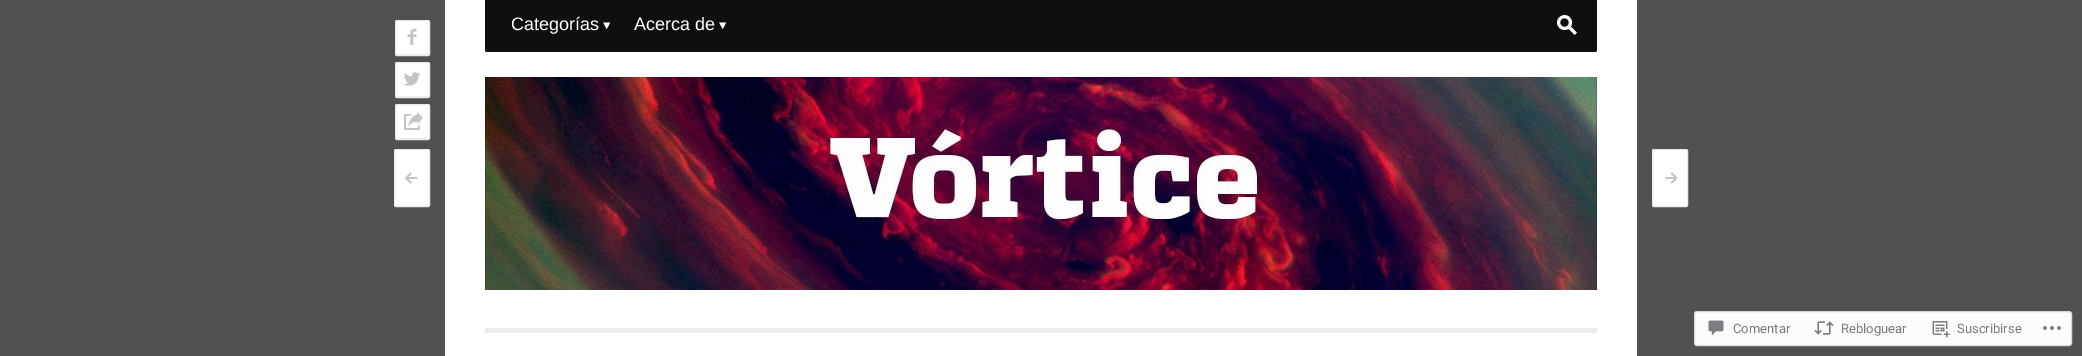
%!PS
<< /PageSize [2082 356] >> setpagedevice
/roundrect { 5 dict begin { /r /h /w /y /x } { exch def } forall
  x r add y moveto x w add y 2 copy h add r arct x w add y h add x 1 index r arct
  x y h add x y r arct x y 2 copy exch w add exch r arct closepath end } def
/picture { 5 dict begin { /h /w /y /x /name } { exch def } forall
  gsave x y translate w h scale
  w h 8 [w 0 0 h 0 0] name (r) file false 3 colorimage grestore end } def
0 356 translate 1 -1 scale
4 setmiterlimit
0.318 setgray
0 0 2082 356 rectfill
1 setgray
445 0 1192 356 rectfill
0.059 setgray
newpath 485 0 moveto 1597 0 lineto 1597 50 lineto 1597 51 1596 52 1595 52 curveto 487 52 lineto 486 52 485 51 485 50 curveto closepath fill
/LiberationSans-Regular [18 0 0 -18 0 0] selectfont
1 setgray
511 30 moveto (Categorías) show
/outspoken-Regular [7 0 0 -7 0 0] selectfont
603 29 moveto (_) show
/LiberationSans-Regular [18 0 0 -18 0 0] selectfont
634 30 moveto (Acerca de) show
/outspoken-Regular [7 0 0 -7 0 0] selectfont
719 29 moveto (_) show
/outspoken-Regular [20 0 0 -20 0 0] selectfont
1557 34 moveto (s) show
(img1.rgb) 485 77 1112 213 picture
0.925 setgray
485 328 1112 5 rectfill
1 setgray
newpath 397 21 moveto 428 21 lineto 428.5 21 429 21.5 429 22 curveto 429 54 lineto 396 54 lineto 396 21.5 lineto closepath fill
0.925 setgray
395.5 20.5 34 35 1.5 roundrect stroke
396 54 33 1 rectfill
/outspoken-Regular [18 0 0 -18 0 0] selectfont
0.769 setgray
403 45 moveto (f) show
1 setgray
newpath 397 63 moveto 428 63 lineto 428.5 63 429 63.5 429 64 curveto 429 96 lineto 396 96 lineto 396 63.5 lineto closepath fill
0.925 setgray
395.5 62.5 34 35 1.5 roundrect stroke
396 96 33 1 rectfill
0.769 setgray
403 87 moveto (w) show
1 setgray
newpath 397 105 moveto 428 105 lineto 428.5 105 429 105.5 429 106 curveto 429 138 lineto 396 138 lineto 396 105.5 lineto closepath fill
0.925 setgray
395.5 104.5 34 35 1.5 roundrect stroke
396 138 33 1 rectfill
0.769 setgray
404 129 moveto (h) show
1 setgray
394.5 149.5 35 57 1.5 roundrect gsave fill grestore
0.925 setgray
stroke
/outspoken-Regular [11 0 0 -11 0 0] selectfont
0.769 setgray
405 183 moveto (<) show
1 setgray
1652.5 149.5 35 57 1.5 roundrect gsave fill grestore
0.925 setgray
stroke
0.769 setgray
1665 183 moveto (>) show
0.988 setgray
1694.5 311.5 377 34 2.5 roundrect gsave fill grestore
0.851 0.851 0.859 setrgbcolor
stroke
(img2.rgb) 1708 320 16 16 picture
/Roboto-Regular [13 0 0 -13 0 0] selectfont
0.467 0.482 0.506 setrgbcolor
1733 333 moveto (Comentar) show
(img3.rgb) 1814 321 20 14 picture
1841 333 moveto (Rebloguear) show
(img4.rgb) 1932 321 18 17 picture
1957 333 moveto (Suscribirse) show
(img5.rgb) 2043 326 18 4 picture
showpage
